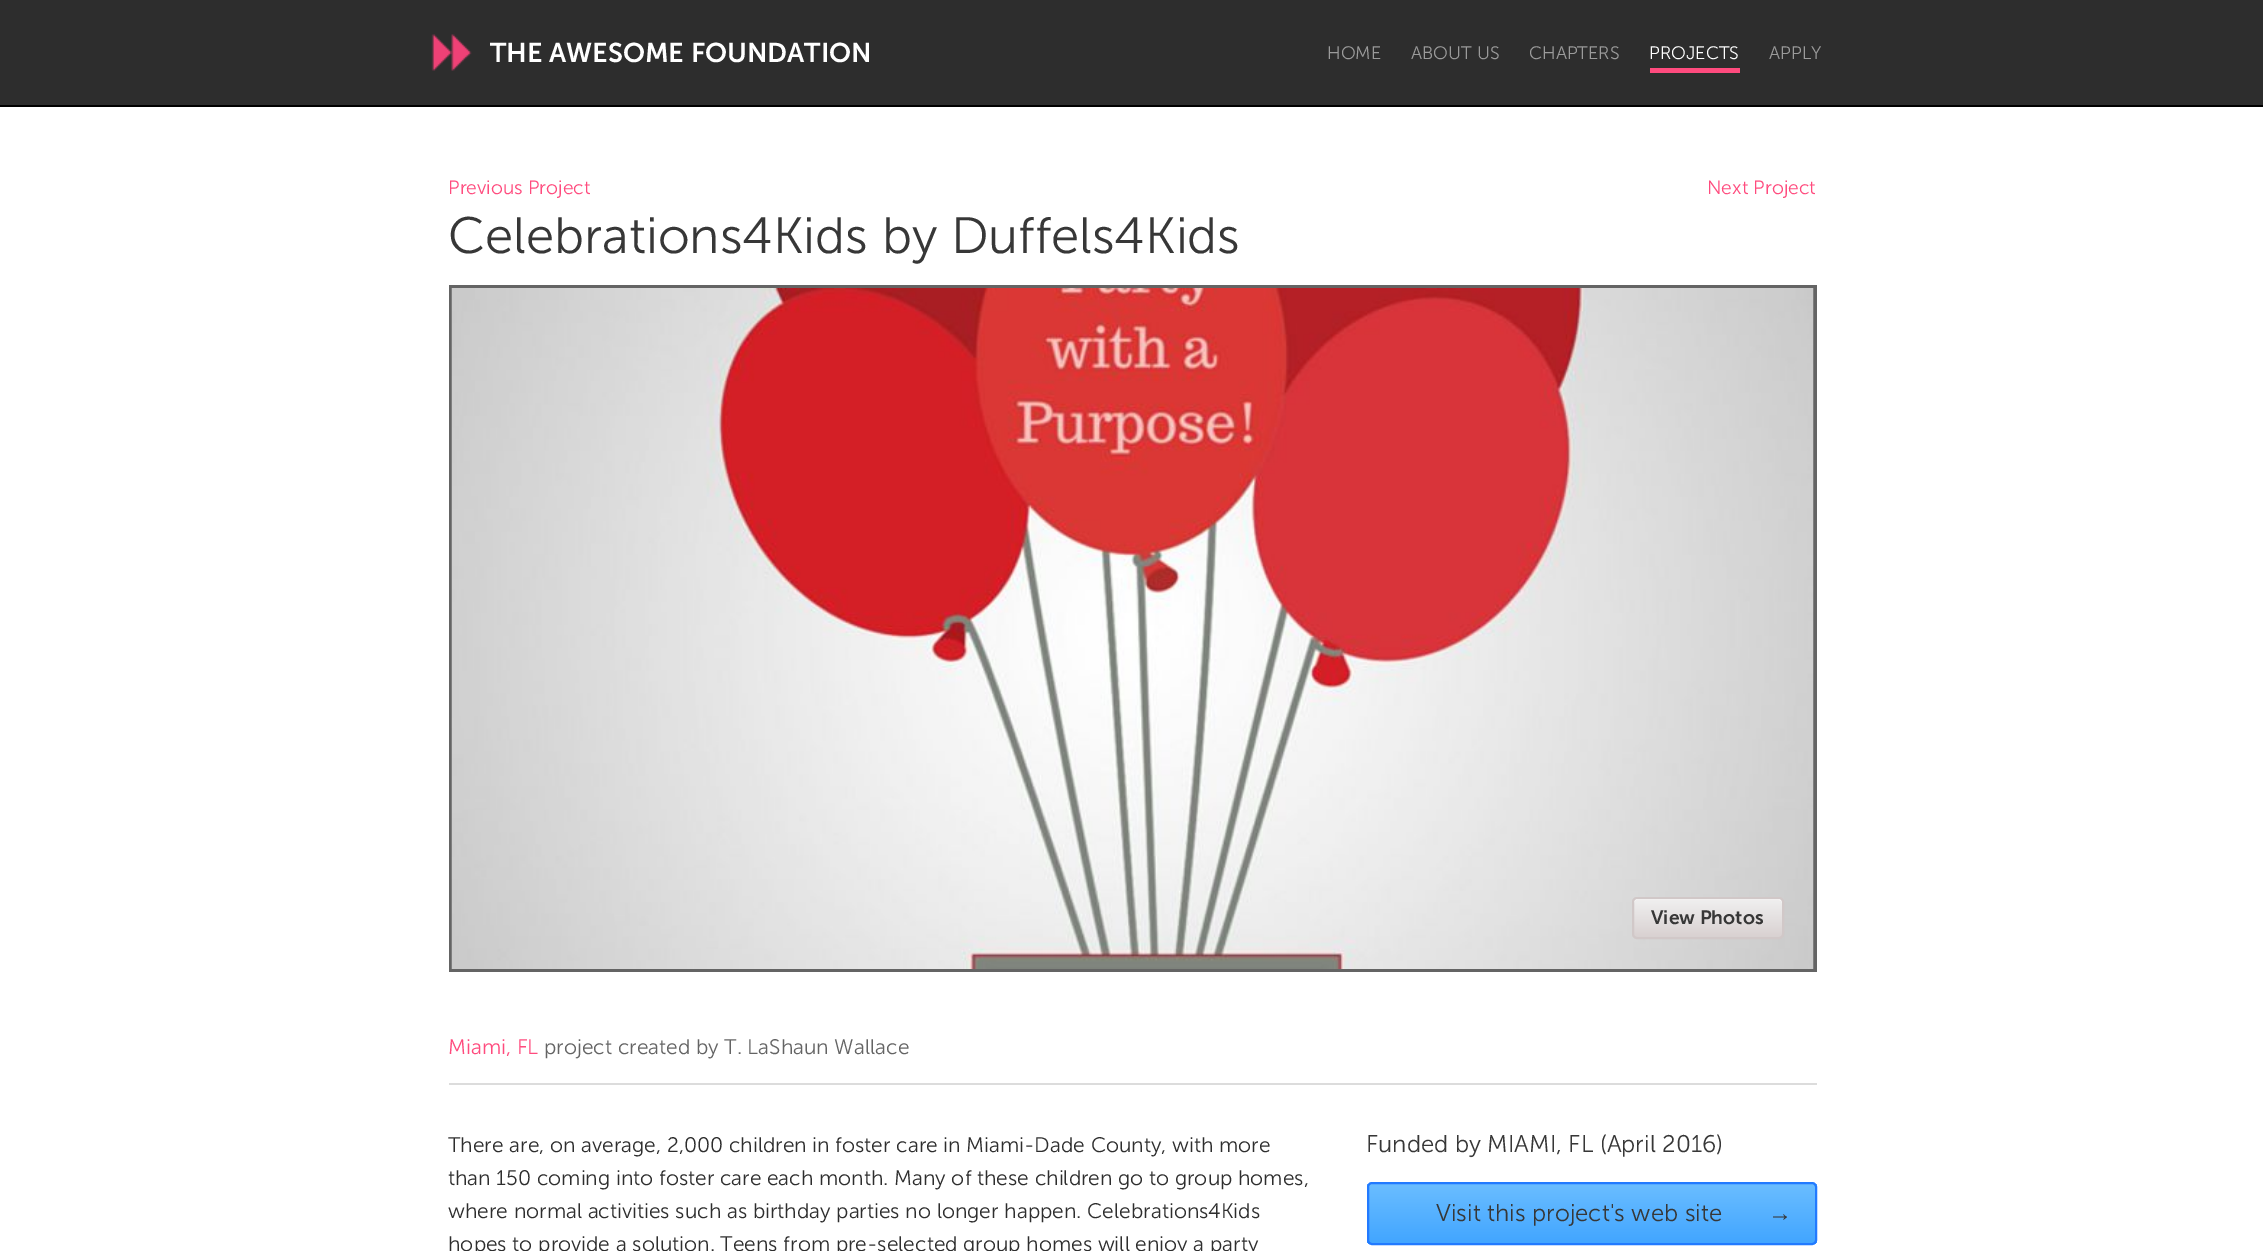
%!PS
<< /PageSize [2263 1251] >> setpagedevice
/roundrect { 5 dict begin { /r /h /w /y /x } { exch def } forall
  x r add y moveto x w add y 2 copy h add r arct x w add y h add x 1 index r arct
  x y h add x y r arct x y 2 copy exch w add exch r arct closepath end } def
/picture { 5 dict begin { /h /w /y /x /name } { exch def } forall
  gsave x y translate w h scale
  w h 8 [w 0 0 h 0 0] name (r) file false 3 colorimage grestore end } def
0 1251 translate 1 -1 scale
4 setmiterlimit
1 setgray
0 0 2263 1251 rectfill
0.176 setgray
0 0 2263 105 rectfill
0 setgray
0 105 2263 2 rectfill
(img1.rgb) 431 34 41 37 picture
/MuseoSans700-SemiBold [27 0 0 -27 0 0] selectfont
1 setgray
490 62 moveto (THE AWESOME FOUNDATION) show
/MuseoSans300-Light [18 0 0 -18 0 0] selectfont
0.608 setgray
1327 59 moveto (HOME) show
1411 59 moveto (ABOUT US) show
1529 59 moveto (CHAPTERS) show
1 0.294 0.494 setrgbcolor
1650 68 90 5 rectfill
1 setgray
1649 59 moveto (PROJECTS) show
0.608 setgray
1769 59 moveto (APPLY) show
/MuseoSans300-Light [19.25 0 0 -19.25 0 0] selectfont
1 0.294 0.494 setrgbcolor
448 194 moveto (Previous Project) show
1707 194 moveto (Next Project) show
/MuseoSans300-Light [51 0 0 -51 0 0] selectfont
0.216 setgray
448 253 moveto (Celebrations4Kids by Duffels4Kids) show
0.392 setgray
449 285 1368 687 rectfill
(img2.rgb) 451 288 1363 681 picture
gsave 1634 899 148 39 3 roundrect clip newpath
<< /ShadingType 2 /ColorSpace /DeviceRGB /Coords [1708 899 1708 938] /Extend [true true] /Function << /FunctionType 2 /Domain [0 1] /C0 [0.941 0.941 0.941] /C1 [0.847 0.816 0.816] /N 1 >> >> shfill grestore
1 setgray
newpath 1636 900 moveto 1779 900 lineto 1781 900 1782 901 1782 903 curveto 1782 901 1782 900 1780 899 curveto 1661 899 lineto 1653 899 1634 894 1634 903 curveto 1634 901 1635 900 1636 900 curveto closepath fill
0.82 0.784 0.784 setrgbcolor
2 setlinewidth
1633 898 150 40 4 roundrect stroke
/MuseoSans700-SemiBold [19.25 0 0 -19.25 0 0] selectfont
0.216 setgray
1651 924 moveto (View Photos) show
0.863 setgray
449 1083 1368 2 rectfill
/MuseoSans300-Light [21 0 0 -21 0 0] selectfont
1 0.294 0.494 setrgbcolor
448 1054 moveto (Miami, FL) show
0.392 setgray
544 1054 moveto (project created by T. LaShaun Wallace) show
0.18 setgray
448 1152 moveto (There are, on average, 2,000 children in foster care in Miami-Dade County, with more) show
448 1185 moveto (than 150 coming into foster care each month. Many of these children go to group homes,) show
448 1218 moveto (where normal activities such as birthday parties no longer happen. Celebrations4Kids) show
448 1251 moveto (hopes to provide a solution. Teens from pre-selected group homes will enjoy a party) show
/MuseoSans300-Light [24 0 0 -24 0 0] selectfont
0.216 setgray
1366 1152 moveto (Funded by MIAMI, FL \(April 2016\)) show
gsave
1367 1182 450 63 5 roundrect clip newpath
gsave newpath 1367 1184 moveto 1817 1184 lineto 1817 1244 lineto 1367 1244 lineto closepath clip newpath
<< /ShadingType 2 /ColorSpace /DeviceRGB /Coords [1592 1184 1592 1244] /Extend [true true] /Function << /FunctionType 2 /Domain [0 1] /C0 [0.416 0.741 1] /C1 [0.255 0.647 1] /N 1 >> >> shfill grestore
grestore
0.133 0.478 1 setrgbcolor
1368 1183 448 61 4 roundrect stroke
0.216 setgray
1436 1221 moveto (Visit this project's web site) show
/LiberationSans-Regular [24 0 0 -24 0 0] selectfont
1768 1221 moveto (→) show
showpage
